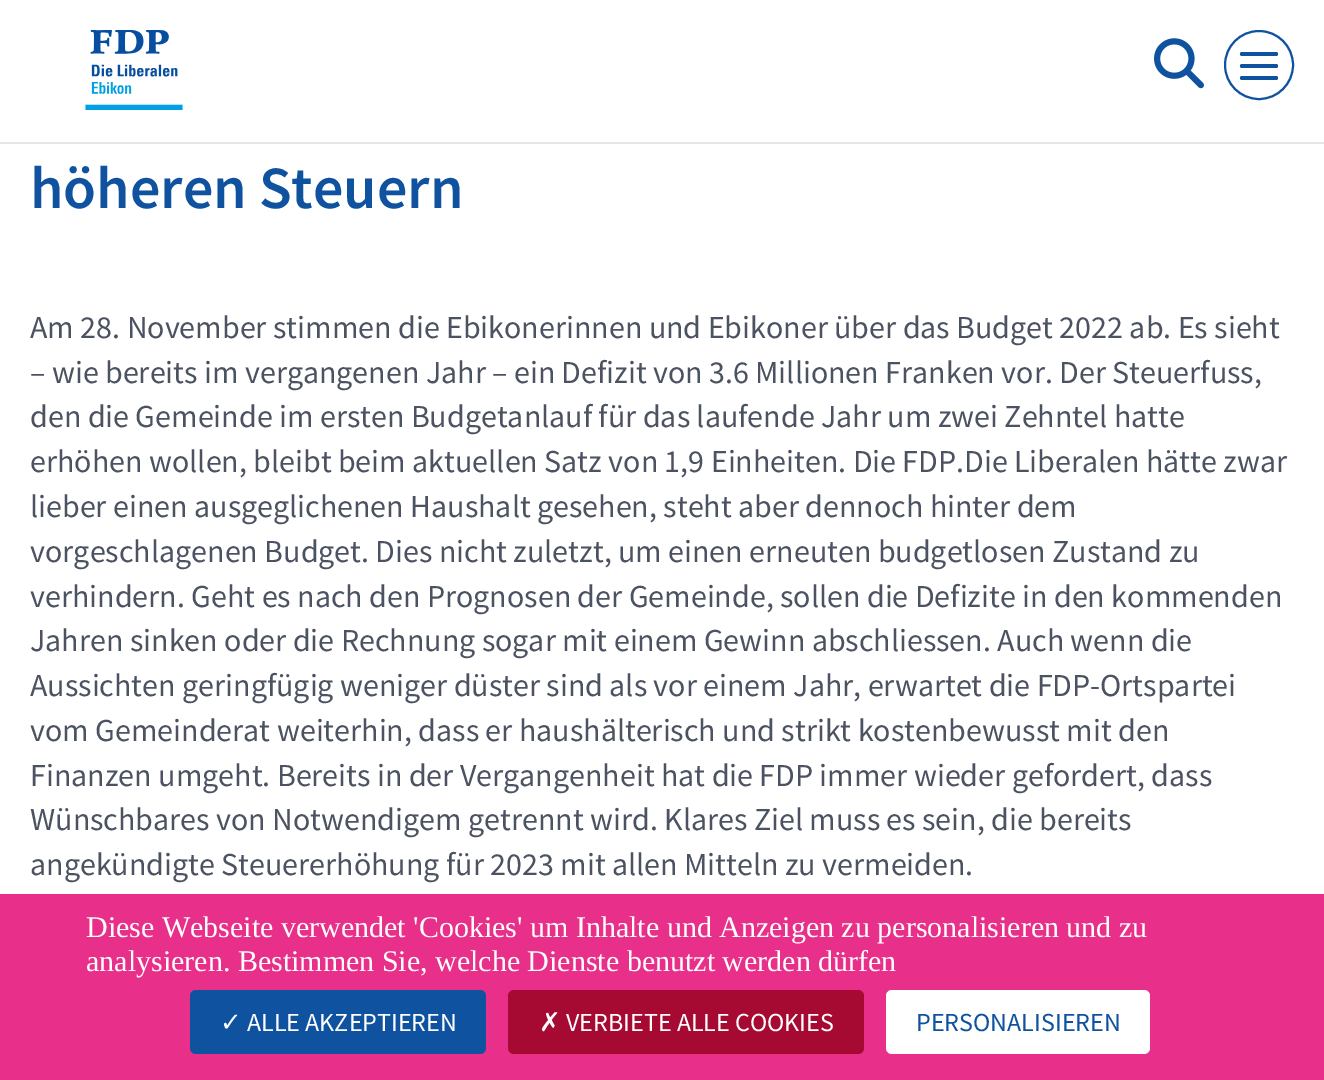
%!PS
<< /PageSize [1324 1080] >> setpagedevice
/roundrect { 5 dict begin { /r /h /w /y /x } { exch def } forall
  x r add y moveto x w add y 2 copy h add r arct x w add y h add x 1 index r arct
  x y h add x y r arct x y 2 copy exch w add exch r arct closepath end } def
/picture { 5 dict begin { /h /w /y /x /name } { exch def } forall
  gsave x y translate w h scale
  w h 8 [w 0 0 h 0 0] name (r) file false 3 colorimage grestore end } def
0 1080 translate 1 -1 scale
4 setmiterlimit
1 setgray
0 0 1324 1080 rectfill
0.902 setgray
0 142 1324 2 rectfill
(img1.rgb) 85 30 98 80 picture
(img2.rgb) 1154 38 50 51 picture
0.055 0.322 0.627 setrgbcolor
2 setlinewidth
newpath 1259 65 34 0 360 arc closepath stroke
1240 52 38 4 2 roundrect fill
1240 64 38 4 2 roundrect fill
1240 76 38 4 2 roundrect fill
/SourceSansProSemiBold-SemiBold [60 0 0 -60 0 0] selectfont
30 208 moveto (höheren Steuern) show
/SourceSansPro-Regular [32 0 0 -32 0 0] selectfont
0.294 0.322 0.38 setrgbcolor
30 338 moveto (Am 28. November stimmen die Ebikonerinnen und Ebikoner über das Budget 2022 ab. Es sieht) show
30 383 moveto (– wie bereits im vergangenen Jahr – ein Defizit von 3.6 Millionen Franken vor. Der Steuerfuss,) show
30 427 moveto (den die Gemeinde im ersten Budgetanlauf für das laufende Jahr um zwei Zehntel hatte) show
30 472 moveto (erhöhen wollen, bleibt beim aktuellen Satz von 1,9 Einheiten. Die FDP.Die Liberalen hätte zwar) show
30 517 moveto (lieber einen ausgeglichenen Haushalt gesehen, steht aber dennoch hinter dem) show
30 562 moveto (vorgeschlagenen Budget. Dies nicht zuletzt, um einen erneuten budgetlosen Zustand zu) show
30 607 moveto (verhindern. Geht es nach den Prognosen der Gemeinde, sollen die Defizite in den kommenden) show
30 651 moveto (Jahren sinken oder die Rechnung sogar mit einem Gewinn abschliessen. Auch wenn die) show
30 696 moveto (Aussichten geringfügig weniger düster sind als vor einem Jahr, erwartet die FDP-Ortspartei) show
30 741 moveto (vom Gemeinderat weiterhin, dass er haushälterisch und strikt kostenbewusst mit den) show
30 786 moveto (Finanzen umgeht. Bereits in der Vergangenheit hat die FDP immer wieder gefordert, dass) show
30 830 moveto (Wünschbares von Notwendigem getrennt wird. Klares Ziel muss es sein, die bereits) show
30 875 moveto (angekündigte Steuererhöhung für 2023 mit allen Mitteln zu vermeiden.) show
0.91 0.188 0.541 setrgbcolor
0 894 1324 186 rectfill
/LiberationSerif-Regular [30 0 0 -30 0 0] selectfont
1 setgray
86 937 moveto (Diese Webseite verwendet 'Cookies' um Inhalte und Anzeigen zu personalisieren und zu) show
86 971 moveto (analysieren. Bestimmen Sie, welche Dienste benutzt werden dürfen) show
0.055 0.322 0.627 setrgbcolor
190 990 296 64 6 roundrect fill
/DejaVuSans-Regular [26 0 0 -26 0 0] selectfont
1 setgray
220 1031 moveto (✓) show
/SourceSansPro-Regular [26 0 0 -26 0 0] selectfont
247 1031 moveto (ALLE AKZEPTIEREN) show
0.651 0.039 0.2 setrgbcolor
508 990 356 64 6 roundrect fill
/DejaVuSans-Regular [26 0 0 -26 0 0] selectfont
1 setgray
539 1031 moveto (✗) show
/SourceSansPro-Regular [26 0 0 -26 0 0] selectfont
566 1031 moveto (VERBIETE ALLE COOKIES) show
886 990 264 64 6 roundrect fill
0.055 0.322 0.627 setrgbcolor
916 1031 moveto (PERSONALISIEREN) show
showpage
